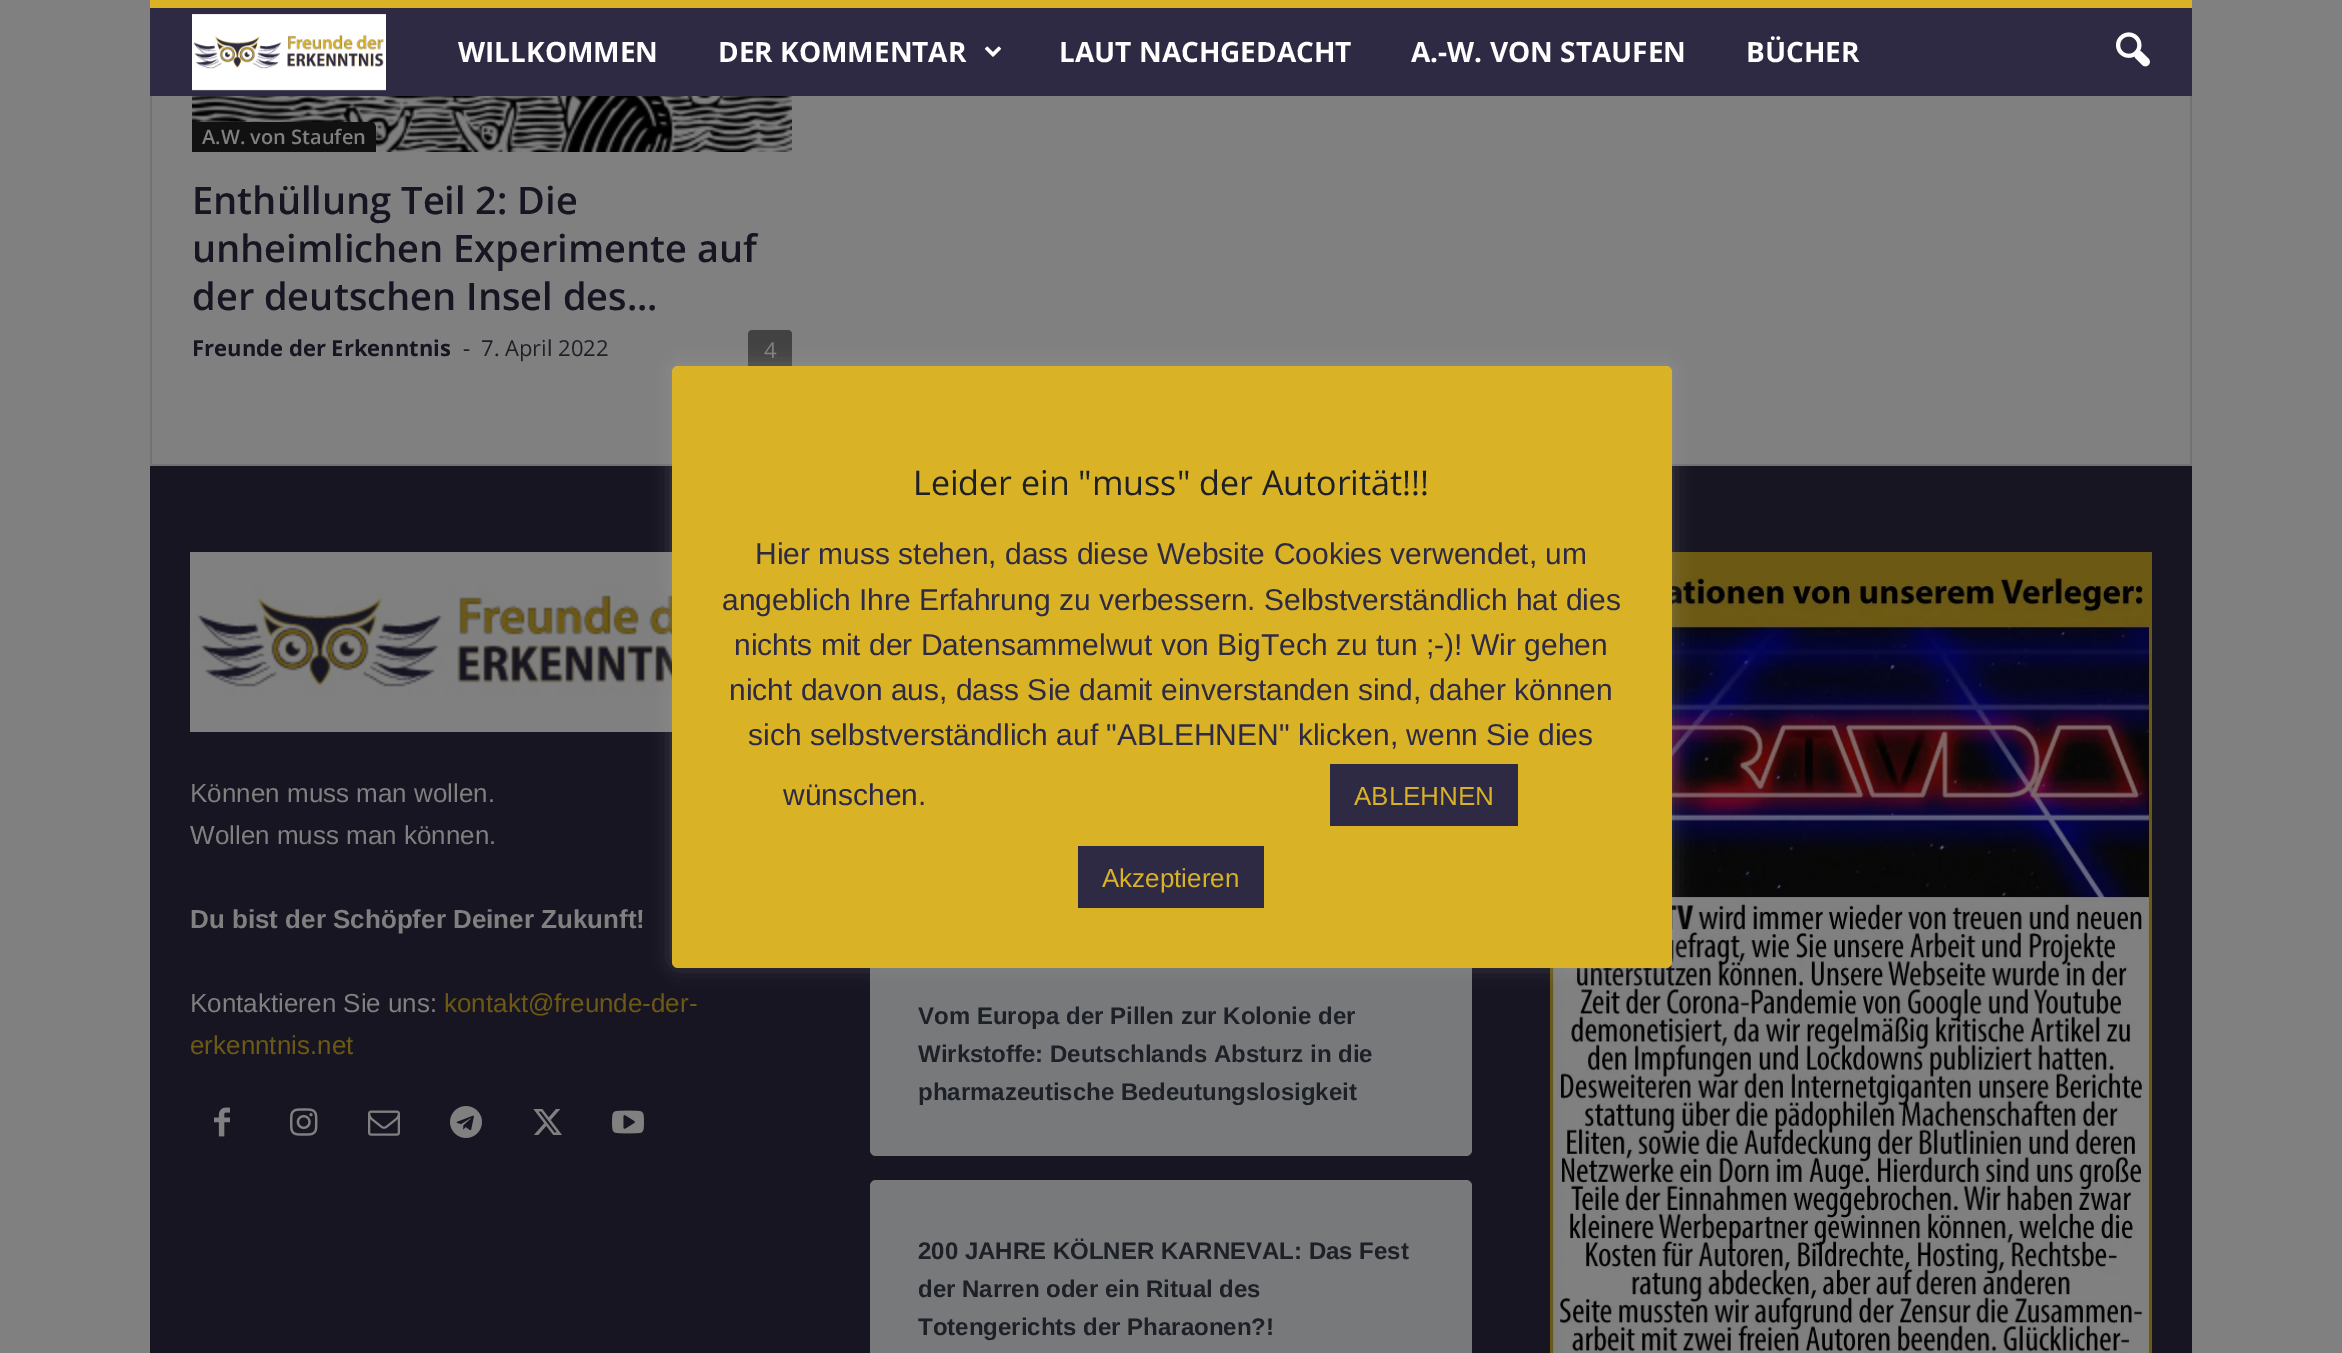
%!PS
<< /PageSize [2342 1353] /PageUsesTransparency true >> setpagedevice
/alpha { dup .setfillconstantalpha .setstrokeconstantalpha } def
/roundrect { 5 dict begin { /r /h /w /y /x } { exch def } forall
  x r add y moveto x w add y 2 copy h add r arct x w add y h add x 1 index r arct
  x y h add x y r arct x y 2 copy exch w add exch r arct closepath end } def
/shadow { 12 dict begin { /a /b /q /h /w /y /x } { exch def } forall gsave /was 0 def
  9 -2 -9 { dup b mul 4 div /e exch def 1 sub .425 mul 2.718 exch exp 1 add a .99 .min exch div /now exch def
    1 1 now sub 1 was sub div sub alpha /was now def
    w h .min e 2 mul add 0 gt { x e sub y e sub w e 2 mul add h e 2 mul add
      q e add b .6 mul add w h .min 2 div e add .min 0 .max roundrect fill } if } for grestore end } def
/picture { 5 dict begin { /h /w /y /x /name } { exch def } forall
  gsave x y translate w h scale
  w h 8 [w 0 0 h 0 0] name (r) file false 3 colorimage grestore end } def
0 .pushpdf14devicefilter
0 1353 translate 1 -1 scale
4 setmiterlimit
0.502 setgray
0 0 2342 1353 rectfill
0.18 0.165 0.267 setrgbcolor
150 8 2042 88 rectfill
0.851 0.698 0.145 setrgbcolor
150 0 2042 8 rectfill
(img1.rgb) 192 14 194 77 picture
/OpenSans-Bold [28 0 0 -28 0 0] selectfont
1 setgray
458 62 moveto (WILLKOMMEN) show
718 62 moveto (DER KOMMENTAR) show
(img2.rgb) 984 46 18 11 picture
1059 62 moveto (LAUT NACHGEDACHT) show
1411 62 moveto (A.-W. VON STAUFEN) show
1746 62 moveto (BÜCHER) show
(img3.rgb) 2116 32 34 35 picture
0.451 setgray
150 464 2042 2 rectfill
150 96 2 368 rectfill
(img4.rgb) 192 96 600 56 picture
0.067 setgray
newpath 192 122 moveto 370 122 lineto 373.5 122 376 124.5 376 128 curveto 376 152 lineto 192 152 lineto closepath fill
/OpenSans-SemiBold [20 0 0 -20 0 0] selectfont
0.502 setgray
202 144 moveto (A.W. von Staufen) show
/OpenSans-SemiBold [38 0 0 -38 0 0] selectfont
0.09 0.082 0.133 setrgbcolor
192 214 moveto (Enthüllung Teil 2: Die) show
192 262 moveto (unheimlichen Experimente auf) show
192 310 moveto (der deutschen Insel des...) show
/OpenSans-Bold [22 0 0 -22 0 0] selectfont
192 356 moveto (Freunde der Erkenntnis) show
/OpenSans-Regular [22 0 0 -22 0 0] selectfont
0.114 0.125 0.149 setrgbcolor
463 356 moveto (-) show
481 356 moveto (7. April 2022) show
0.259 setgray
newpath 752 330 moveto 788 330 lineto 790 330 792 332 792 334 curveto 792 370 lineto 752 370 lineto 750 370 748 368 748 366 curveto 748 334 lineto 748 332 750 330 752 330 curveto closepath fill
0.502 setgray
764 358 moveto (4) show
0.451 setgray
2190 96 2 368 rectfill
0.09 0.082 0.133 setrgbcolor
150 466 2042 887 rectfill
(img5.rgb) 190 552 482 180 picture
/LiberationSans-Regular [26 0 0 -26 0 0] selectfont
0.502 setgray
190 802 moveto (Können muss man wollen.) show
190 844 moveto (Wollen muss man können.) show
/LiberationSans-Bold [26 0 0 -26 0 0] selectfont
190 928 moveto (Du bist der Schöpfer Deiner Zukunft!) show
/LiberationSans-Regular [26 0 0 -26 0 0] selectfont
190 1012 moveto (Kontaktieren Sie uns:) show
0.427 0.349 0.075 setrgbcolor
444 1012 moveto (kontakt@freunde-der-) show
190 1054 moveto (erkenntnis.net) show
(img6.rgb) 214 1107 16 30 picture
(img7.rgb) 290 1108 28 28 picture
(img8.rgb) 368 1110 32 26 picture
(img9.rgb) 450 1106 32 32 picture
(img10.rgb) 533 1109 29 26 picture
(img11.rgb) 612 1110 32 24 picture
(img12.rgb) 1550 552 602 801 picture
0.471 0.475 0.478 setrgbcolor
870 946 602 210 6 roundrect fill
/LiberationSans-Bold [24 0 0 -24 0 0] selectfont
0.114 0.125 0.149 setrgbcolor
918 1024 moveto (Vom Europa der Pillen zur Kolonie der) show
918 1062 moveto (Wirkstoffe: Deutschlands Absturz in die) show
918 1100 moveto (pharmazeutische Bedeutungslosigkeit) show
0.471 0.475 0.478 setrgbcolor
870 1180 602 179 6 roundrect fill
0.114 0.125 0.149 setrgbcolor
918 1259 moveto (200 JAHRE KÖLNER KARNEVAL: Das Fest) show
918 1297 moveto (der Narren oder ein Ritual des) show
918 1335 moveto (Totengerichts der Pharaonen?!) show
0.675 0.671 0.671 setrgbcolor
672 364 1000 602 6 10 0.3 shadow
0.851 0.698 0.145 setrgbcolor
672 366 1000 602 6 roundrect fill
/OpenSans-Regular [34 0 0 -34 0 0] selectfont
0.114 0.125 0.149 setrgbcolor
913 495 moveto (Leider ein "muss" der Autorität!!!) show
/LiberationSans-Regular [30 0 0 -30 0 0] selectfont
0.18 0.165 0.267 setrgbcolor
755 564 moveto (Hier muss stehen, dass diese Website Cookies verwendet, um) show
722 610 moveto (angeblich Ihre Erfahrung zu verbessern. Selbstverständlich hat dies) show
734 655 moveto (nichts mit der Datensammelwut von BigTech zu tun ;-\)! Wir gehen) show
729 700 moveto (nicht davon aus, dass Sie damit einverstanden sind, daher können) show
748 745 moveto (sich selbstverständlich auf "ABLEHNEN" klicken, wenn Sie dies) show
783 805 moveto (wünschen.) show
1330 764 188 62 rectfill
/LiberationSans-Regular [26 0 0 -26 0 0] selectfont
0.851 0.698 0.145 setrgbcolor
1354 805 moveto (ABLEHNEN) show
0.18 0.165 0.267 setrgbcolor
1078 846 186 62 rectfill
0.851 0.698 0.145 setrgbcolor
1102 887 moveto (Akzeptieren) show
.poppdf14devicefilter showpage
